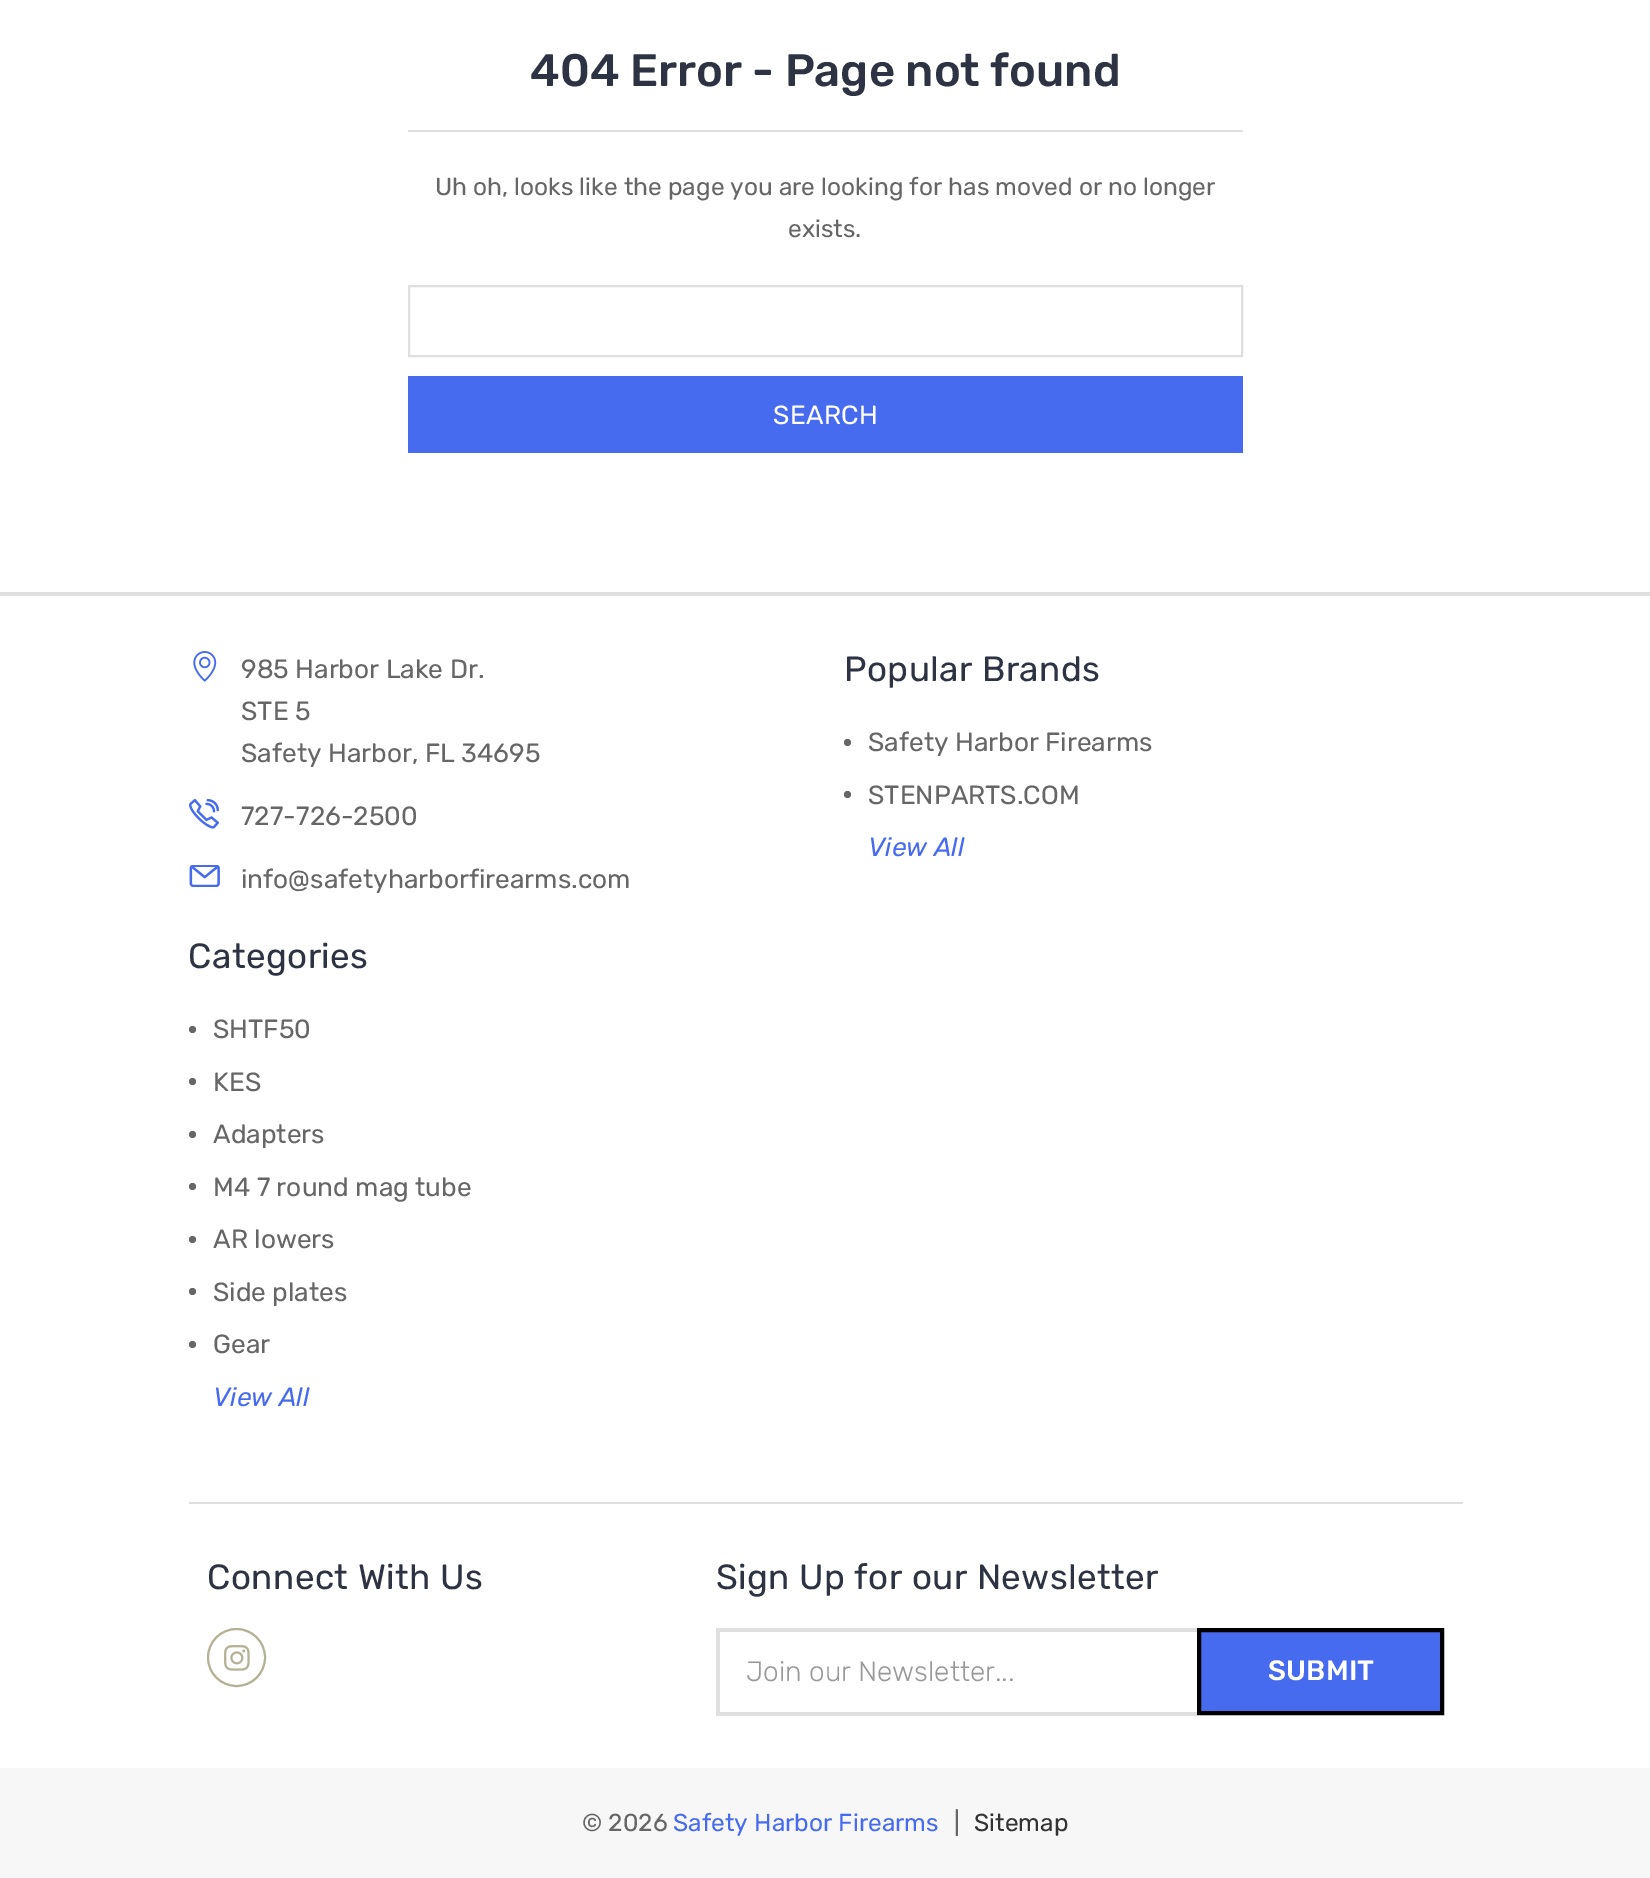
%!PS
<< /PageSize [1650 1878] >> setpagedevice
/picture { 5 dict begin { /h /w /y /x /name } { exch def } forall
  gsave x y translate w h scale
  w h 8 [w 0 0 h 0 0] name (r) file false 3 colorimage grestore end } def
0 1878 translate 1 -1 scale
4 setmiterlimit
1 setgray
0 0 1650 1878 rectfill
0.875 setgray
408 130 835 2 rectfill
/Rubik-Medium [45.5 0 0 -45.5 0 0] selectfont
0.18 0.2 0.267 setrgbcolor
530 86 moveto (404 Error - Page not found) show
/Rubik-Regular [24.5 0 0 -24.5 0 0] selectfont
0.4 setgray
435 195 moveto (Uh oh, looks like the page you are looking for has moved or no longer) show
788 237 moveto (exists.) show
0.875 setgray
2 setlinewidth
409 286 833 70 rectstroke
0.278 0.42 0.937 setrgbcolor
408 376 835 77 rectfill
/Rubik-Regular [26.25 0 0 -26.25 0 0] selectfont
1 setgray
773 424 moveto 0.25 0 (SEARCH) ashow
0.875 setgray
0 592 1650 4 rectfill
(img1.rgb) 193 651 24 31 picture
0.4 setgray
241 678 moveto (985 Harbor Lake Dr.) show
241 720 moveto (STE 5) show
241 762 moveto (Safety Harbor, FL 34695) show
(img2.rgb) 189 798 30 31 picture
241 825 moveto (727-726-2500) show
(img3.rgb) 189 865 31 22 picture
241 888 moveto (info@safetyharborfirearms.com) show
/Rubik-Regular [35 0 0 -35 0 0] selectfont
0.18 0.2 0.267 setrgbcolor
844 681 moveto 0.45 0 (Popular Brands) ashow
0.4 setgray
newpath 847.5 742.5 3.5 0 360 arc closepath fill
/Rubik-Regular [26.25 0 0 -26.25 0 0] selectfont
868 751 moveto (Safety Harbor Firearms) show
newpath 847.5 794.5 3.5 0 360 arc closepath fill
868 804 moveto (STENPARTS.COM) show
/Rubik-Italic [26.25 0 0 -26.25 0 0] selectfont
0.278 0.42 0.937 setrgbcolor
868 856 moveto (View All) show
/Rubik-Regular [35 0 0 -35 0 0] selectfont
0.18 0.2 0.267 setrgbcolor
188 968 moveto 0.45 0 (Categories) ashow
0.4 setgray
newpath 192.5 1029.5 3.5 0 360 arc closepath fill
/Rubik-Regular [26.25 0 0 -26.25 0 0] selectfont
213 1038 moveto (SHTF50) show
newpath 192.5 1081.5 3.5 0 360 arc closepath fill
213 1091 moveto (KES) show
newpath 192.5 1134.5 3.5 0 360 arc closepath fill
213 1143 moveto (Adapters) show
newpath 192.5 1186.5 3.5 0 360 arc closepath fill
213 1196 moveto (M4 7 round mag tube) show
newpath 192.5 1239.5 3.5 0 360 arc closepath fill
213 1248 moveto (AR lowers) show
newpath 192.5 1291.5 3.5 0 360 arc closepath fill
213 1301 moveto (Side plates) show
newpath 192.5 1344.5 3.5 0 360 arc closepath fill
213 1353 moveto (Gear) show
/Rubik-Italic [26.25 0 0 -26.25 0 0] selectfont
0.278 0.42 0.937 setrgbcolor
213 1406 moveto (View All) show
0.875 setgray
189 1502 1274 2 rectfill
/Rubik-Regular [35 0 0 -35 0 0] selectfont
0.18 0.2 0.267 setrgbcolor
207 1589 moveto 0.45 0 (Connect With Us) ashow
0.71 0.694 0.588 setrgbcolor
newpath 236.5 1657.5 28.5 0 360 arc closepath stroke
(img4.rgb) 224 1645 26 26 picture
0.18 0.2 0.267 setrgbcolor
716 1589 moveto 0.45 0 (Sign Up for our Newsletter) ashow
0.875 setgray
716 1628 481 4 rectfill
716 1712 481 4 rectfill
716 1628 4 87 rectfill
/Rubik-Light [28 0 0 -28 0 0] selectfont
0.6 setgray
746 1681 moveto (Join our Newsletter...) show
0.278 0.42 0.937 setrgbcolor
newpath 1199 1630 moveto 1442 1630 lineto 1442 1713 lineto 1199 1713 lineto closepath gsave fill grestore
0 setgray
4 setlinewidth
stroke
/Rubik-Medium [28 0 0 -28 0 0] selectfont
1 setgray
1268 1680 moveto 0.25 0 (SUBMIT) ashow
0.969 setgray
0 1768 1650 110 rectfill
/Rubik-Regular [24.5 0 0 -24.5 0 0] selectfont
0.4 setgray
582 1831 moveto (© 2026) show
0.278 0.42 0.937 setrgbcolor
673 1831 moveto (Safety Harbor Firearms) show
0.4 setgray
954 1831 moveto (|) show
0.2 setgray
974 1831 moveto (Sitemap) show
showpage
